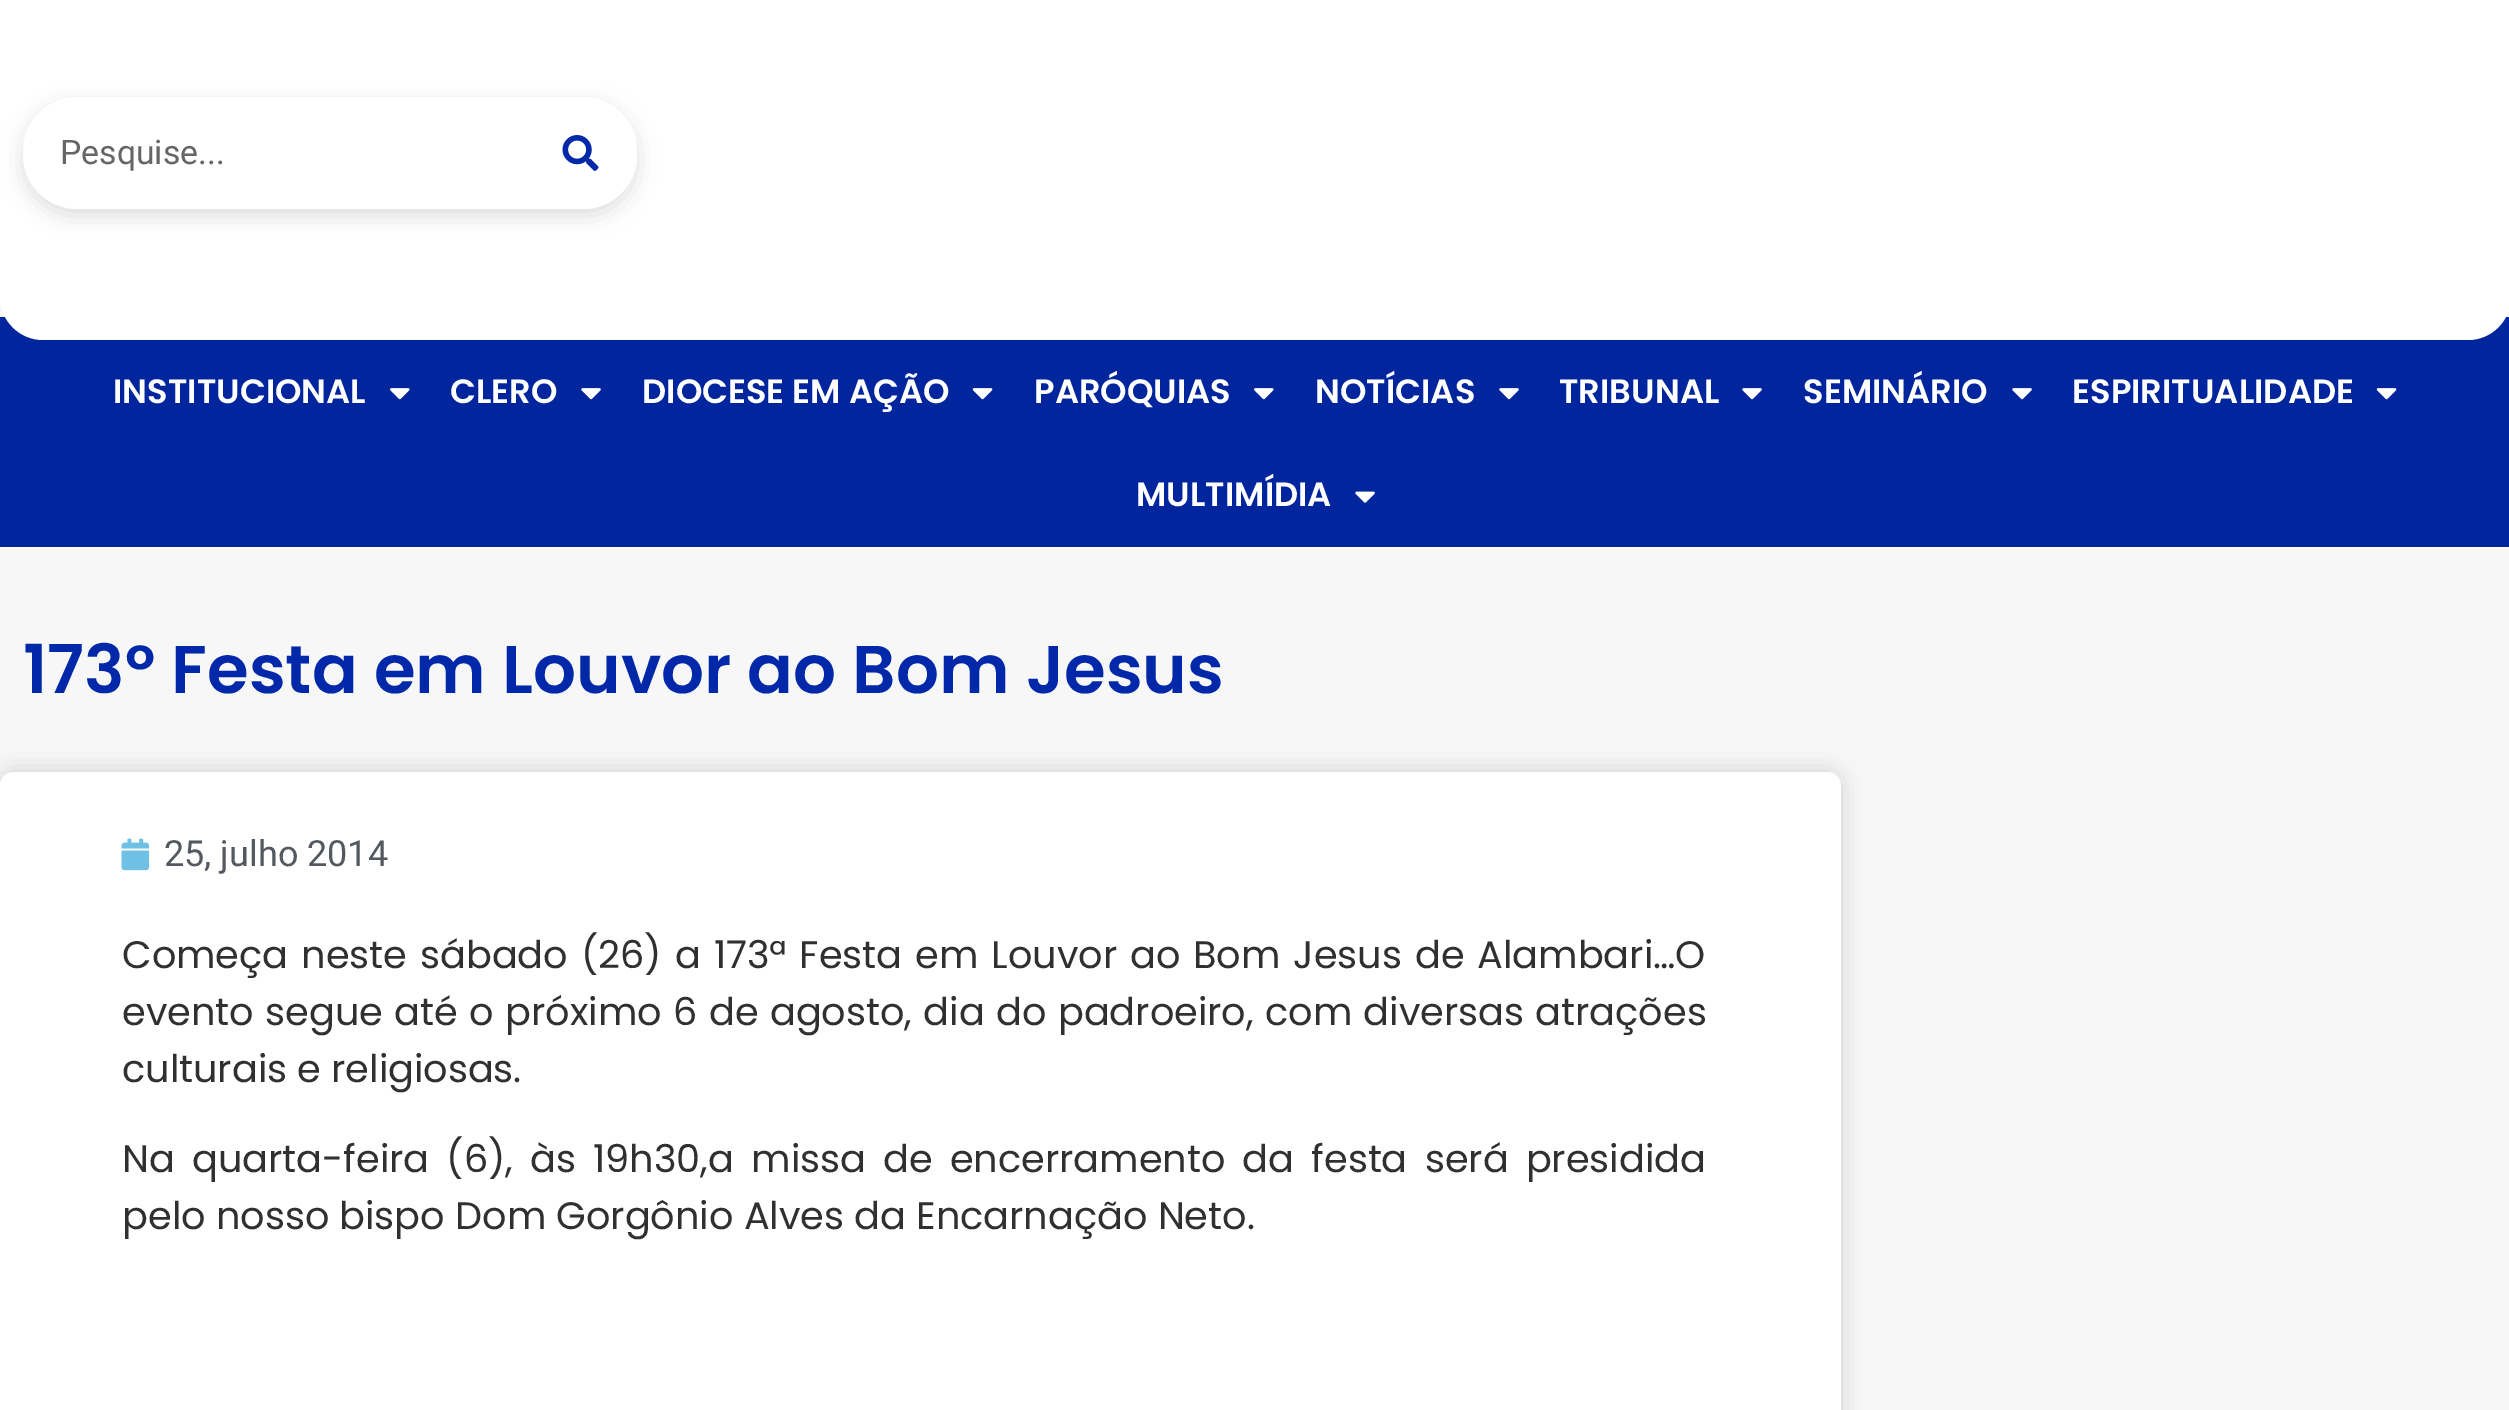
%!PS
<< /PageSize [2509 1410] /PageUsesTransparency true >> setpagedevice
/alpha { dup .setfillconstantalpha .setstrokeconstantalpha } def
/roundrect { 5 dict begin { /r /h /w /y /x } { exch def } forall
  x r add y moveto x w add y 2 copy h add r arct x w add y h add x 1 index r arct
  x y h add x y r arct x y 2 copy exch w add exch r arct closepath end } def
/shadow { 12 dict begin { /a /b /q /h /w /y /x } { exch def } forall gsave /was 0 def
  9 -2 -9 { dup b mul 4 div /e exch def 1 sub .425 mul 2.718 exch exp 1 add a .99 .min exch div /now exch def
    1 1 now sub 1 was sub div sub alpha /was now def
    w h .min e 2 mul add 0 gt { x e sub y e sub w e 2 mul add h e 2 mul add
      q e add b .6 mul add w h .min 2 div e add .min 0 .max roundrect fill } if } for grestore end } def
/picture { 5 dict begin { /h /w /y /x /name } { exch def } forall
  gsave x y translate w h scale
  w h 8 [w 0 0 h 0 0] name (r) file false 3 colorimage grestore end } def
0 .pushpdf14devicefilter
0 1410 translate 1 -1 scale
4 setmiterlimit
0.969 setgray
0 0 2509 1410 rectfill
0.004 0.145 0.612 setrgbcolor
0 317 2509 230 rectfill
1 setgray
newpath 0 0 moveto 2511 0 lineto 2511 297 lineto 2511 320.5 2491.5 340 2468 340 curveto 43 340 lineto 19.5 340 0 320.5 0 297 curveto closepath fill
0 setgray
23 104 614 112 54 11 0.13 shadow
1 setgray
23 97 614 112 54 roundrect fill
/Roboto-Regular [33.75 0 0 -33.75 0 0] selectfont
0.4 setgray
60 164 moveto (Pesquise...) show
1 setgray
newpath 524 97 moveto 583 97 lineto 613 97 637 121 637 151 curveto 637 155 lineto 637 185 613 209 583 209 curveto 524 209 lineto closepath fill
(img1.rgb) 562 135 37 36 picture
/Poppins-SemiBold [33.75 0 0 -33.75 0 0] selectfont
113 403 moveto (INSTITUCIONAL) show
(img2.rgb) 390 388 20 12 picture
450 403 moveto (CLERO) show
(img3.rgb) 581 388 20 12 picture
642 403 moveto (DIOCESE EM AÇÃO) show
(img4.rgb) 972 388 21 12 picture
1034 403 moveto (PARÓQUIAS) show
(img2.rgb) 1254 388 20 12 picture
1315 403 moveto (NOTÍCIAS) show
(img3.rgb) 1499 388 20 12 picture
1559 403 moveto (TRIBUNAL) show
(img3.rgb) 1742 388 20 12 picture
1803 403 moveto (SEMINÁRIO) show
(img3.rgb) 2012 388 20 12 picture
2072 403 moveto (ESPIRITUALIDADE) show
(img4.rgb) 2376 388 21 12 picture
1136 506 moveto (MULTIMÍDIA) show
(img5.rgb) 1355 491 20 12 picture
/Poppins-SemiBold [67.5 0 0 -67.5 0 0] selectfont
0.004 0.157 0.663 setrgbcolor
23 693 moveto (173º Festa em Louvor ao Bom Jesus) show
0 setgray
0 772 1841 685 14 11 0.17 shadow
1 setgray
0 772 1841 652 14 roundrect fill
(img6.rgb) 121 838 29 33 picture
/Roboto-Regular [36 0 0 -36 0 0] selectfont
0.329 0.349 0.373 setrgbcolor
164 866 moveto (25, julho 2014) show
/Poppins-Regular [38.25 0 0 -38.25 0 0] selectfont
0.188 setgray
122 968 moveto 2.75 0 32 (Começa neste sábado \(26\) a 173ª Festa em Louvor ao Bom Jesus de Alambari…O) widthshow
122 1025 moveto 1.25 0 32 (evento segue até o próximo 6 de agosto, dia do padroeiro, com diversas atrações) widthshow
122 1082 moveto (culturais e religiosas.) show
122 1172 moveto 7 0 32 (Na quarta-feira \(6\), às 19h30,a missa de encerramento da festa será presidida) widthshow
122 1229 moveto (pelo nosso bispo Dom Gorgônio Alves da Encarnação Neto.) show
.poppdf14devicefilter showpage
